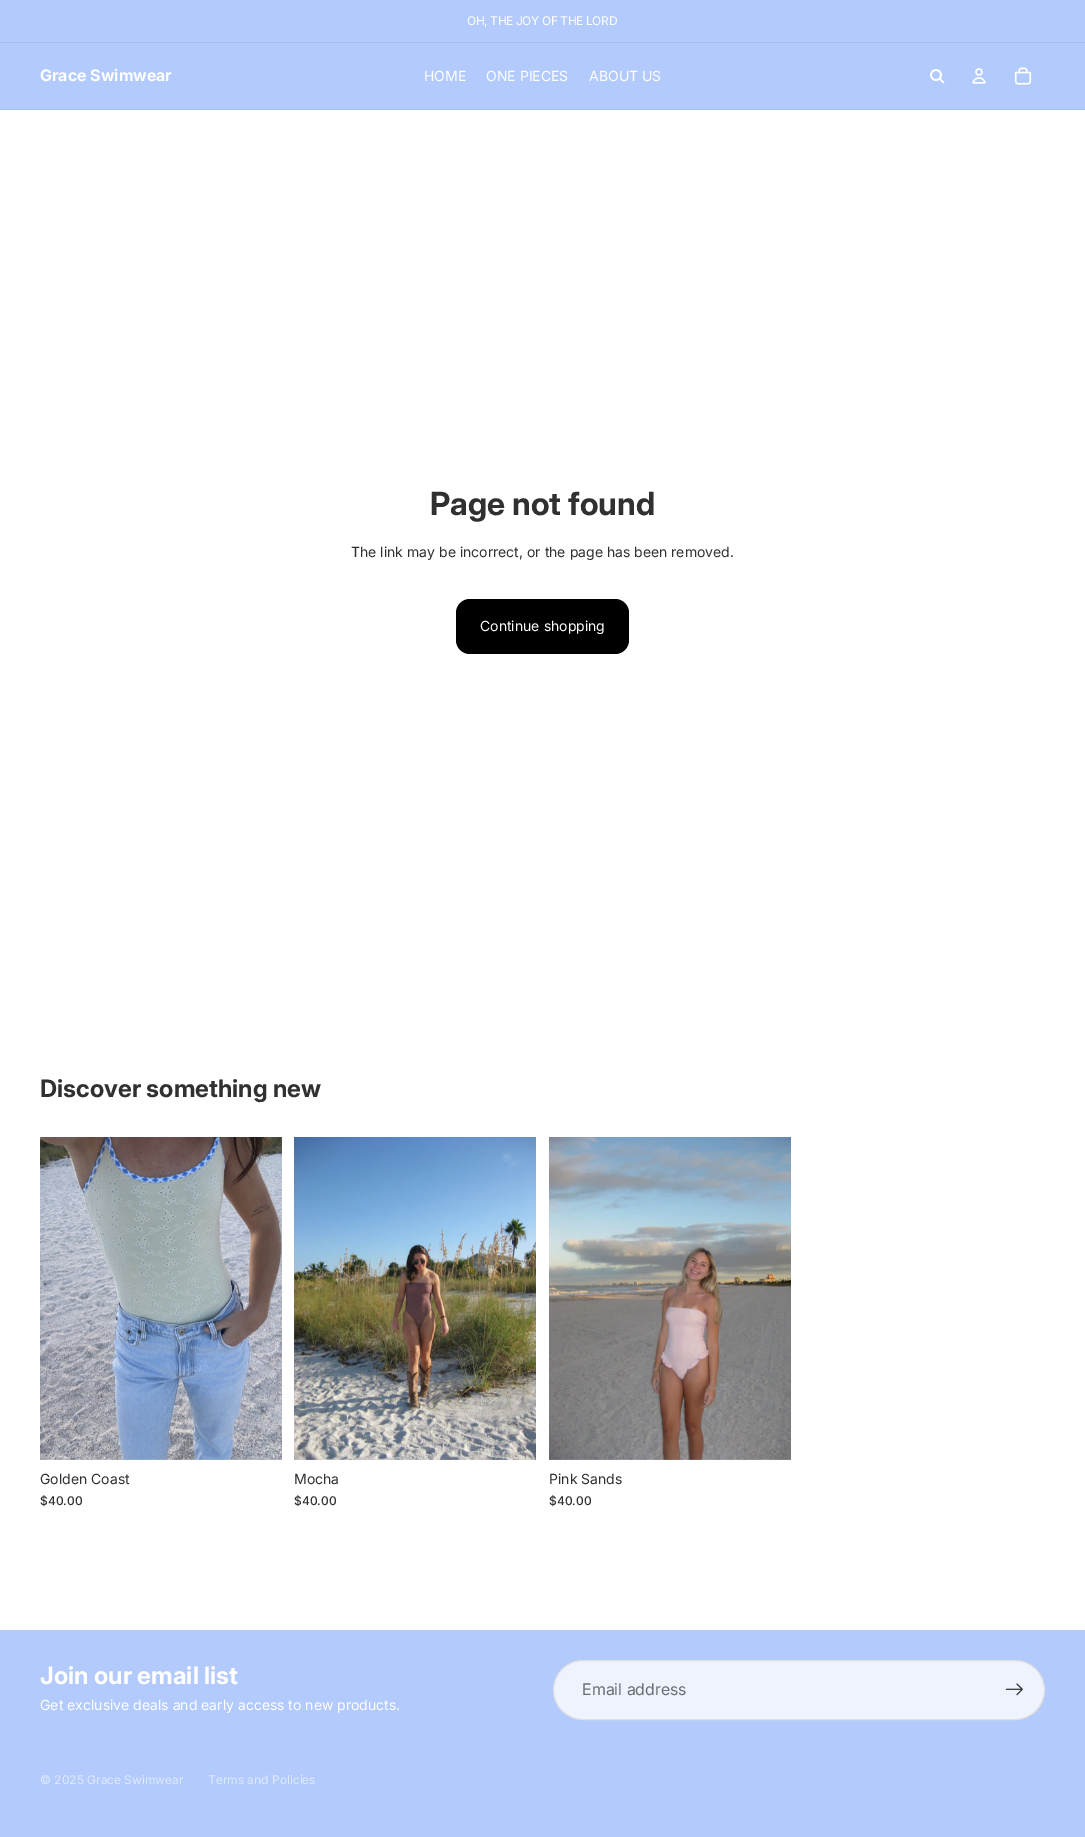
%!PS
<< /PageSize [1085 1837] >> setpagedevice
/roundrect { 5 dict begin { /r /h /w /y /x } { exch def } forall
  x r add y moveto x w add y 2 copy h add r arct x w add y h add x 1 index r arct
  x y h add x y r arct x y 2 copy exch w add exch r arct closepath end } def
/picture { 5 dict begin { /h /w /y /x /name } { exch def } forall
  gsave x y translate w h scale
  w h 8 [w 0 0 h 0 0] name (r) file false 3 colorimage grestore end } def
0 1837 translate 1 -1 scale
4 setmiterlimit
1 setgray
0 0 1085 1837 rectfill
0.698 0.792 0.988 setrgbcolor
0 0 1085 42 rectfill
0.655 0.745 0.929 setrgbcolor
0 42 1085 1 rectfill
/Inter-Regular [12 0 0 -12 0 0] selectfont
1 setgray
467 25 moveto -0.4 0 (OH, THE JOY OF THE LORD) ashow
0.698 0.792 0.988 setrgbcolor
0 43 1085 66 rectfill
0.655 0.745 0.929 setrgbcolor
0 109 1085 1 rectfill
/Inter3-Bold [16 0 0 -16 0 0] selectfont
1 setgray
40 81 moveto (Grace Swimwear) show
/Inter-Regular [14 0 0 -14 0 0] selectfont
424 81 moveto (HOME) show
486 81 moveto (ONE PIECES) show
589 81 moveto (ABOUT US) show
1.7 setlinewidth
newpath 936 75 5 0 360 arc closepath stroke
1 setlinecap
1 setlinejoin
newpath 940 79 moveto 943.5 82.5 lineto stroke
(img1.rgb) 972 68 14 16 picture
(img2.rgb) 1014 67 18 18 picture
/Inter-Bold [32 0 0 -32 0 0] selectfont
0.188 setgray
430 515 moveto (Page not found) show
/Inter-Regular [14 0 0 -14 0 0] selectfont
351 557 moveto (The link may be incorrect, or the page has been removed.) show
0 setgray
456 599 173 55 14 roundrect fill
1 setgray
480 631 moveto (Continue shopping) show
/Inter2-Bold [24 0 0 -24 0 0] selectfont
0.188 setgray
40 1097 moveto (Discover something new) show
(img3.rgb) 40 1137 242 323 picture
/Inter-Regular [14 0 0 -14 0 0] selectfont
40 1484 moveto (Golden Coast) show
/Inter-Medium [12 0 0 -12 0 0] selectfont
40 1505 moveto ($40.00) show
(img4.rgb) 294 1137 242 323 picture
/Inter-Regular [14 0 0 -14 0 0] selectfont
294 1484 moveto (Mocha) show
/Inter-Medium [12 0 0 -12 0 0] selectfont
294 1505 moveto ($40.00) show
(img5.rgb) 549 1137 242 323 picture
/Inter-Regular [14 0 0 -14 0 0] selectfont
549 1484 moveto (Pink Sands) show
/Inter-Medium [12 0 0 -12 0 0] selectfont
549 1505 moveto ($40.00) show
0.698 0.792 0.988 setrgbcolor
0 1630 1085 207 rectfill
/Inter2-Bold [24 0 0 -24 0 0] selectfont
1 setgray
40 1684 moveto (Join our email list) show
/Inter-Regular [14 0 0 -14 0 0] selectfont
40 1710 moveto (Get exclusive deals and early access to new products.) show
0.933 0.953 0.996 setrgbcolor
553.5 1660.5 491 59 29.5 roundrect gsave fill grestore
0.875 setgray
1 setlinewidth
0 setlinecap
0 setlinejoin
stroke
/Inter2-Regular [16 0 0 -16 0 0] selectfont
0.42 0.427 0.439 setrgbcolor
582 1695 moveto (Email address) show
(img6.rgb) 1005 1683 18 13 picture
/Inter-Regular [12 0 0 -12 0 0] selectfont
0.878 0.918 0.996 setrgbcolor
40 1784 moveto (© 2025 Grace Swimwear) show
208 1784 moveto (Terms and Policies) show
showpage
